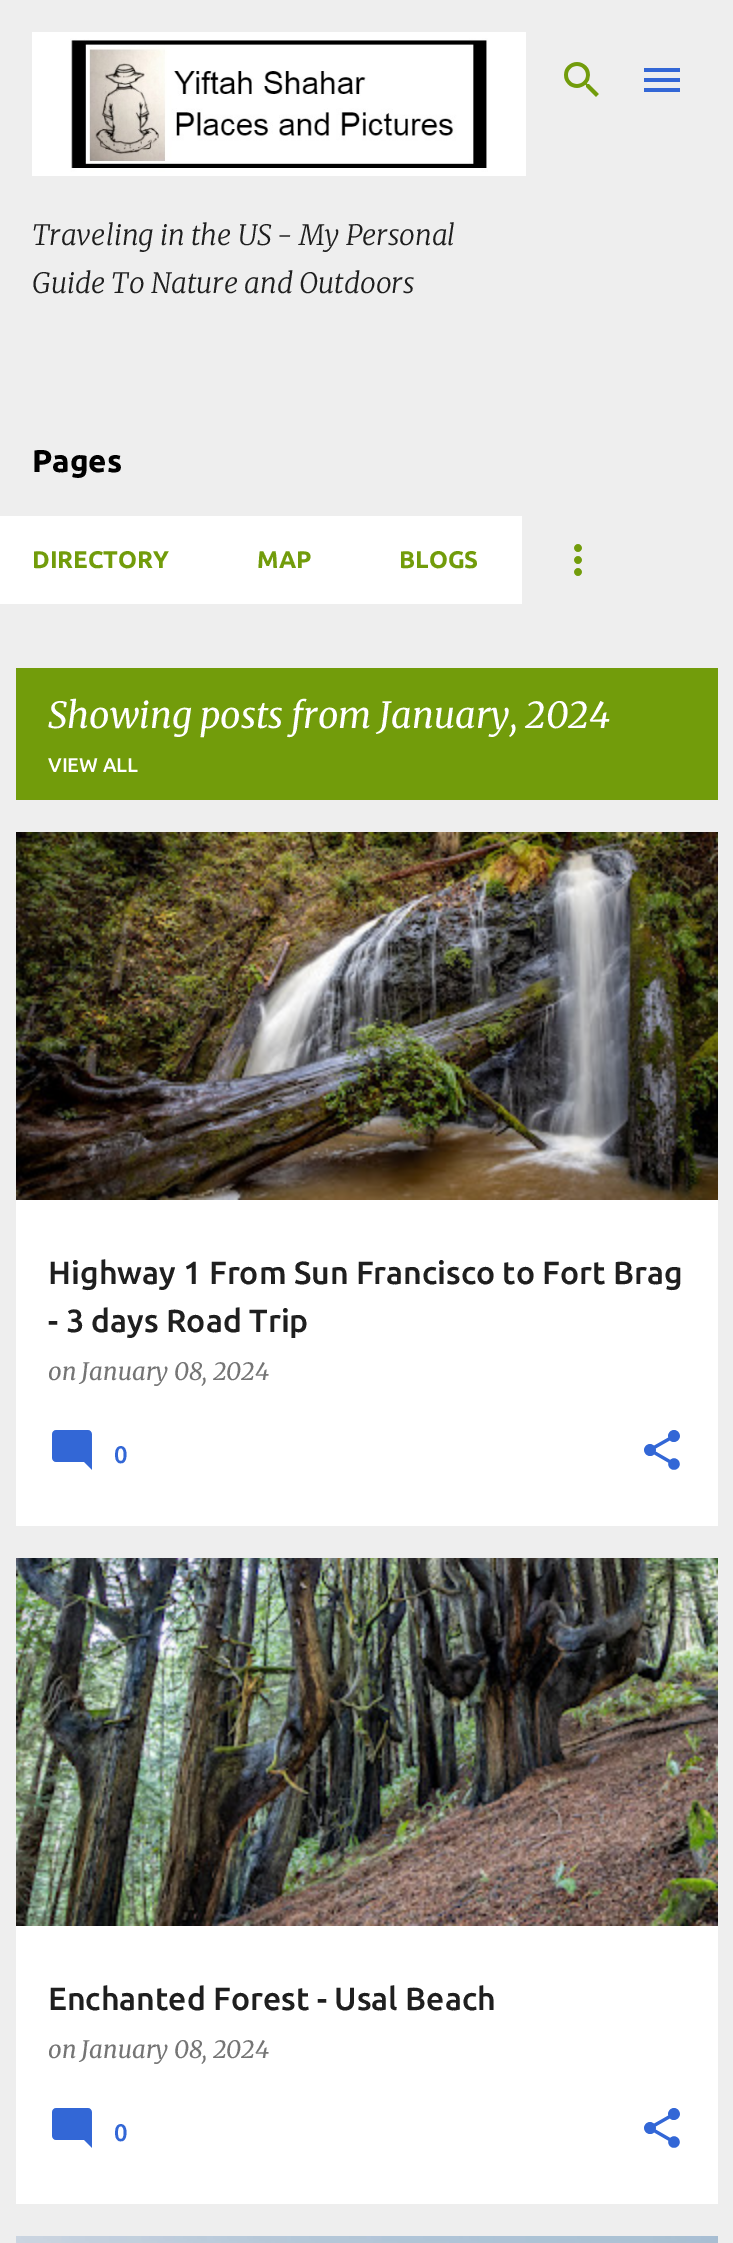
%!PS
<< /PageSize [733 2243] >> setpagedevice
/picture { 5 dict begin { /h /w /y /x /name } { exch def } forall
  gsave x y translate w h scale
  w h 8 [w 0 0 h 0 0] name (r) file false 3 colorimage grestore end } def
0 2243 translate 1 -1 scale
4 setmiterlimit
0.933 setgray
0 0 733 2243 rectfill
(img1.rgb) 564 62 35 35 picture
(img2.rgb) 644 68 36 24 picture
(img3.rgb) 32 32 494 144 picture
/Merriweather-LightItalic [28 0 0 -28 0 0] selectfont
0.122 setgray
32 245 moveto (Traveling in the US - My Personal) show
32 293 moveto (Guide To Nature and Outdoors) show
/Ubuntu-Bold [31.5 0 0 -31.5 0 0] selectfont
0 setgray
32 472 moveto (Pages) show
1 setgray
0 516 522 88 rectfill
/Ubuntu-Bold [24 0 0 -24 0 0] selectfont
0.447 0.612 0.043 setrgbcolor
32 568 moveto (DIRECTORY) show
257 568 moveto (MAP) show
399 568 moveto (BLOGS) show
(img4.rgb) 574 544 8 32 picture
16 668 702 132 rectfill
/Merriweather-Italic [36 0 0 -36 0 0] selectfont
1 setgray
48 728 moveto (Showing posts from January, 2024) show
/Ubuntu-Medium [20 0 0 -20 0 0] selectfont
48 772 moveto (VIEW ALL) show
16 1200 702 326 rectfill
(img5.rgb) 16 832 702 368 picture
/Ubuntu-Medium [32 0 0 -32 0 0] selectfont
0.122 setgray
48 1284 moveto (Highway 1 From Sun Francisco to Fort Brag) show
48 1332 moveto (- 3 days Road Trip) show
/Merriweather-Italic [24 0 0 -24 0 0] selectfont
0.459 setgray
48 1380 moveto (on January 08, 2024) show
(img6.rgb) 52 1430 40 40 picture
/Ubuntu-Medium [24 0 0 -24 0 0] selectfont
0.2 0.404 0.839 setrgbcolor
114 1463 moveto (0) show
(img7.rgb) 644 1430 36 40 picture
1 setgray
16 1926 702 278 rectfill
(img8.rgb) 16 1558 702 368 picture
/Ubuntu-Medium [32 0 0 -32 0 0] selectfont
0.122 setgray
48 2010 moveto (Enchanted Forest - Usal Beach) show
/Merriweather-Italic [24 0 0 -24 0 0] selectfont
0.459 setgray
48 2058 moveto (on January 08, 2024) show
(img6.rgb) 52 2108 40 40 picture
/Ubuntu-Medium [24 0 0 -24 0 0] selectfont
0.2 0.404 0.839 setrgbcolor
114 2141 moveto (0) show
(img7.rgb) 644 2108 36 40 picture
(img9.rgb) 16 2236 702 7 picture
showpage
